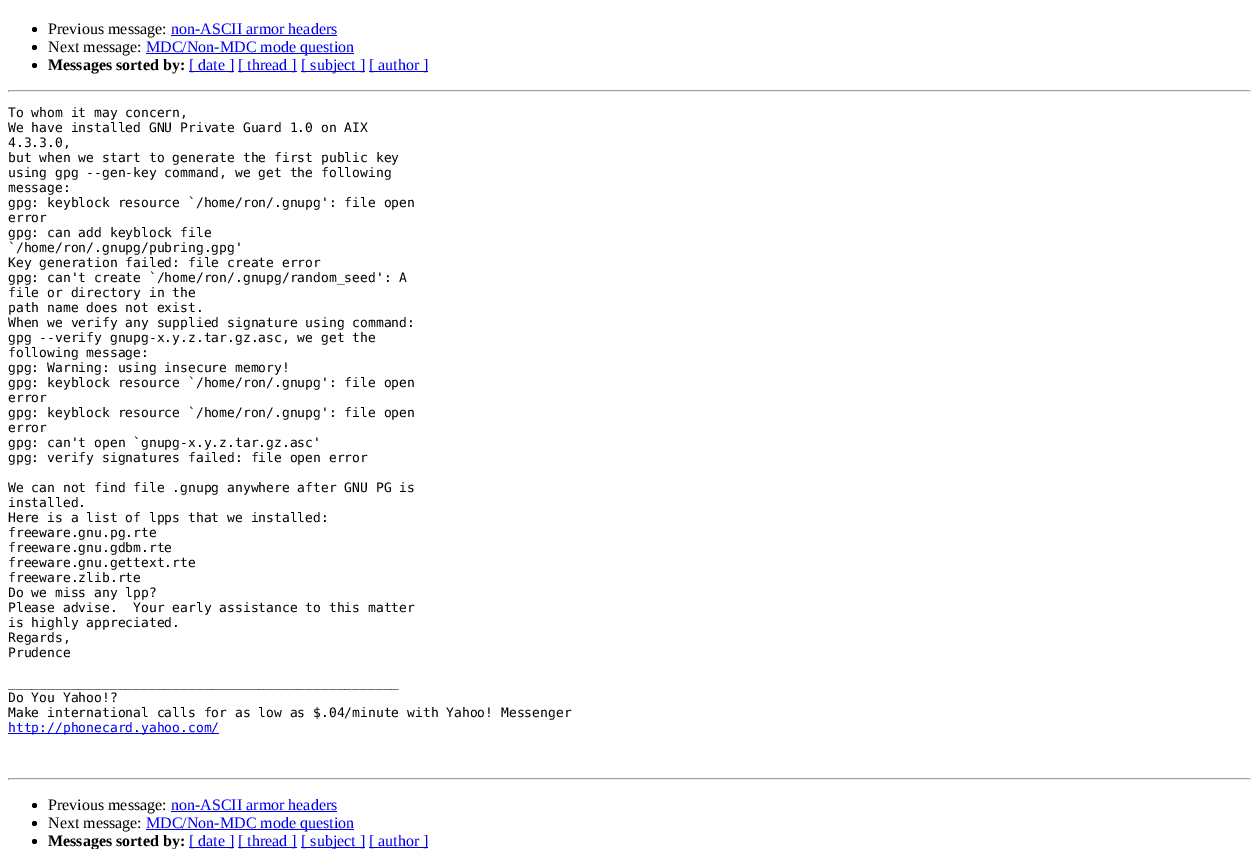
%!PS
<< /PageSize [1259 849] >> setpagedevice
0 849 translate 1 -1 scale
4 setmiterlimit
1 setgray
0 0 1259 849 rectfill
0 setgray
newpath 34.5 29.5 2.5 0 360 arc closepath fill
/LiberationSerif-Regular [16 0 0 -16 0 0] selectfont
48 34 moveto (Previous message:) show
0 0 0.933 setrgbcolor
171 34 moveto (non-ASCII armor headers) show
171 35 166 1 rectfill
0 setgray
newpath 34.5 47.5 2.5 0 360 arc closepath fill
48 52 moveto (Next message:) show
0 0 0.933 setrgbcolor
146 53 208 1 rectfill
146 52 moveto (MDC/Non-MDC mode question) show
0 setgray
newpath 34.5 65.5 2.5 0 360 arc closepath fill
/LiberationSerif-Bold [16 0 0 -16 0 0] selectfont
48 70 moveto (Messages sorted by:) show
0 0 0.933 setrgbcolor
189 71 45 1 rectfill
/LiberationSerif-Regular [16 0 0 -16 0 0] selectfont
189 70 moveto ([ date ]) show
238 71 59 1 rectfill
238 70 moveto ([ thread ]) show
301 71 64 1 rectfill
301 70 moveto ([ subject ]) show
369 71 59 1 rectfill
369 70 moveto ([ author ]) show
0.624 setgray
8 90 1243 1 rectfill
0.933 setgray
1250 90 1 2 rectfill
8 91 1243 1 rectfill
0.624 setgray
8 90 1 2 rectfill
/DejaVuSansMono-Regular [13 0 0 -13 0 0] selectfont
0 setgray
8 117 moveto (To whom it may concern,) show
8 132 moveto (We have installed GNU Private Guard 1.0 on AIX) show
8 147 moveto (4.3.3.0,) show
8 162 moveto (but when we start to generate the first public key) show
8 177 moveto (using gpg --gen-key command, we get the following) show
8 192 moveto (message:) show
8 207 moveto (gpg: keyblock resource `/home/ron/.gnupg': file open) show
8 222 moveto (error) show
8 237 moveto (gpg: can add keyblock file) show
8 252 moveto (`/home/ron/.gnupg/pubring.gpg') show
8 267 moveto (Key generation failed: file create error) show
8 282 moveto (gpg: can't create `/home/ron/.gnupg/random_seed': A) show
8 297 moveto (file or directory in the) show
8 312 moveto (path name does not exist.) show
8 327 moveto (When we verify any supplied signature using command:) show
8 342 moveto (gpg --verify gnupg-x.y.z.tar.gz.asc, we get the) show
8 357 moveto (following message:) show
8 372 moveto (gpg: Warning: using insecure memory!) show
8 387 moveto (gpg: keyblock resource `/home/ron/.gnupg': file open) show
8 402 moveto (error) show
8 417 moveto (gpg: keyblock resource `/home/ron/.gnupg': file open) show
8 432 moveto (error) show
8 447 moveto (gpg: can't open `gnupg-x.y.z.tar.gz.asc') show
8 462 moveto (gpg: verify signatures failed: file open error) show
8 492 moveto (We can not find file .gnupg anywhere after GNU PG is) show
8 507 moveto (installed.) show
8 522 moveto (Here is a list of lpps that we installed:) show
8 537 moveto (freeware.gnu.pg.rte) show
8 552 moveto (freeware.gnu.gdbm.rte) show
8 567 moveto (freeware.gnu.gettext.rte) show
8 582 moveto (freeware.zlib.rte) show
8 597 moveto (Do we miss any lpp?) show
8 612 moveto (Please advise.  Your early assistance to this matter) show
8 627 moveto (is highly appreciated.) show
8 642 moveto (Regards,) show
8 657 moveto (Prudence) show
8 687 moveto (__________________________________________________) show
8 702 moveto (Do You Yahoo!?) show
8 717 moveto (Make international calls for as low as $.04/minute with Yahoo! Messenger) show
0 0 0.933 setrgbcolor
8 733 211 1 rectfill
8 732 moveto (http://phonecard.yahoo.com/) show
0.624 setgray
8 778 1243 1 rectfill
0.933 setgray
1250 778 1 2 rectfill
8 779 1243 1 rectfill
0.624 setgray
8 778 1 2 rectfill
0 setgray
newpath 34.5 805.5 2.5 0 360 arc closepath fill
/LiberationSerif-Regular [16 0 0 -16 0 0] selectfont
48 810 moveto (Previous message:) show
0 0 0.933 setrgbcolor
171 810 moveto (non-ASCII armor headers) show
171 811 166 1 rectfill
0 setgray
newpath 34.5 823.5 2.5 0 360 arc closepath fill
48 828 moveto (Next message:) show
0 0 0.933 setrgbcolor
146 829 208 1 rectfill
146 828 moveto (MDC/Non-MDC mode question) show
0 setgray
newpath 34.5 841.5 2.5 0 360 arc closepath fill
/LiberationSerif-Bold [16 0 0 -16 0 0] selectfont
48 846 moveto (Messages sorted by:) show
0 0 0.933 setrgbcolor
189 847 45 1 rectfill
/LiberationSerif-Regular [16 0 0 -16 0 0] selectfont
189 846 moveto ([ date ]) show
238 847 59 1 rectfill
238 846 moveto ([ thread ]) show
301 847 64 1 rectfill
301 846 moveto ([ subject ]) show
369 847 59 1 rectfill
369 846 moveto ([ author ]) show
showpage
